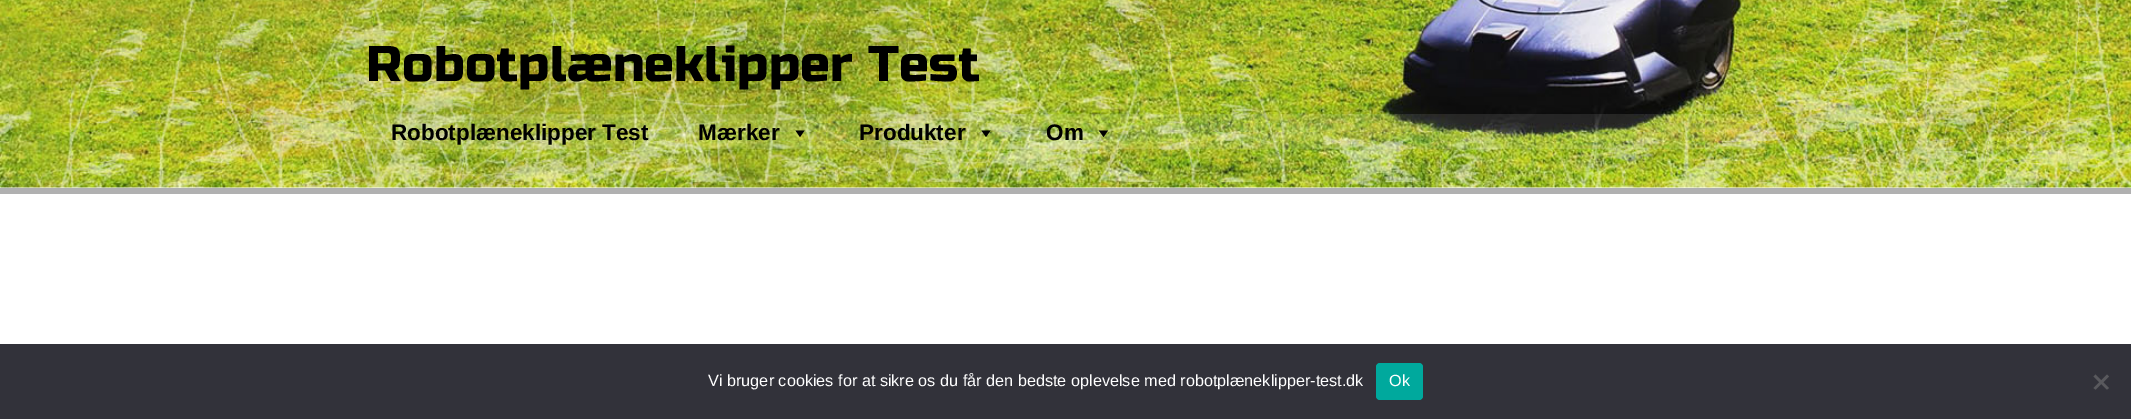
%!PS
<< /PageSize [2131 419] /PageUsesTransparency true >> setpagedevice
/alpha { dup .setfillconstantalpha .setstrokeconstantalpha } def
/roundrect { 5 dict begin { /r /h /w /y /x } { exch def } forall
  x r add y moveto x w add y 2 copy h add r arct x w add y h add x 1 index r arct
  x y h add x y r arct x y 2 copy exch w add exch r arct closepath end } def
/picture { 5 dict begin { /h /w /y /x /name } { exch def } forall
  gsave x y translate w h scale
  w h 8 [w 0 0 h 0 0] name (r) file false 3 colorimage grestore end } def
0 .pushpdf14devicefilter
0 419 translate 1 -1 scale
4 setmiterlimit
1 setgray
0 0 2131 419 rectfill
(img1.rgb) 0 0 2131 188 picture
/RussoOne-Regular [50 0 0 -50 0 0] selectfont
0 setgray
366 81 moveto (Robotplæneklipper Test) show
0.1 alpha
1 setgray
366 114 1400 35 rectfill
/LiberationSans-Bold [22.5 0 0 -22.5 0 0] selectfont
1 alpha
0 setgray
391 140 moveto (Robotplæneklipper Test) show
698 140 moveto (Mærker) show
newpath 804.5 130.5 moveto 800 137 lineto 795.5 130.5 lineto closepath fill
859 140 moveto (Produkter) show
newpath 990.5 130.5 moveto 986 137 lineto 981.5 130.5 lineto closepath fill
1046 140 moveto (Om) show
newpath 1108 130.5 moveto 1103.5 137 lineto 1099 130.5 lineto closepath fill
0.69 setgray
0 188 2131 6 rectfill
0.196 0.196 0.227 setrgbcolor
0 344 2131 75 rectfill
/LiberationSans-Regular [16.25 0 0 -16.25 0 0] selectfont
1 setgray
708 386 moveto (Vi bruger cookies for at sikre os du får den bedste oplevelse med robotplæneklipper-test.dk) show
0 0.663 0.616 setrgbcolor
1376 363 47 37 4 roundrect fill
1 setgray
1389 386 moveto (Ok) show
0.349 0.349 0.365 setrgbcolor
newpath 2107 374.5 moveto 2109 376.5 lineto 2095.5 389.5 lineto 2093.5 388 lineto closepath fill
newpath 2093.5 376.5 moveto 2095.5 374.5 lineto 2109 388 lineto 2107 389.5 lineto closepath fill
.poppdf14devicefilter showpage
